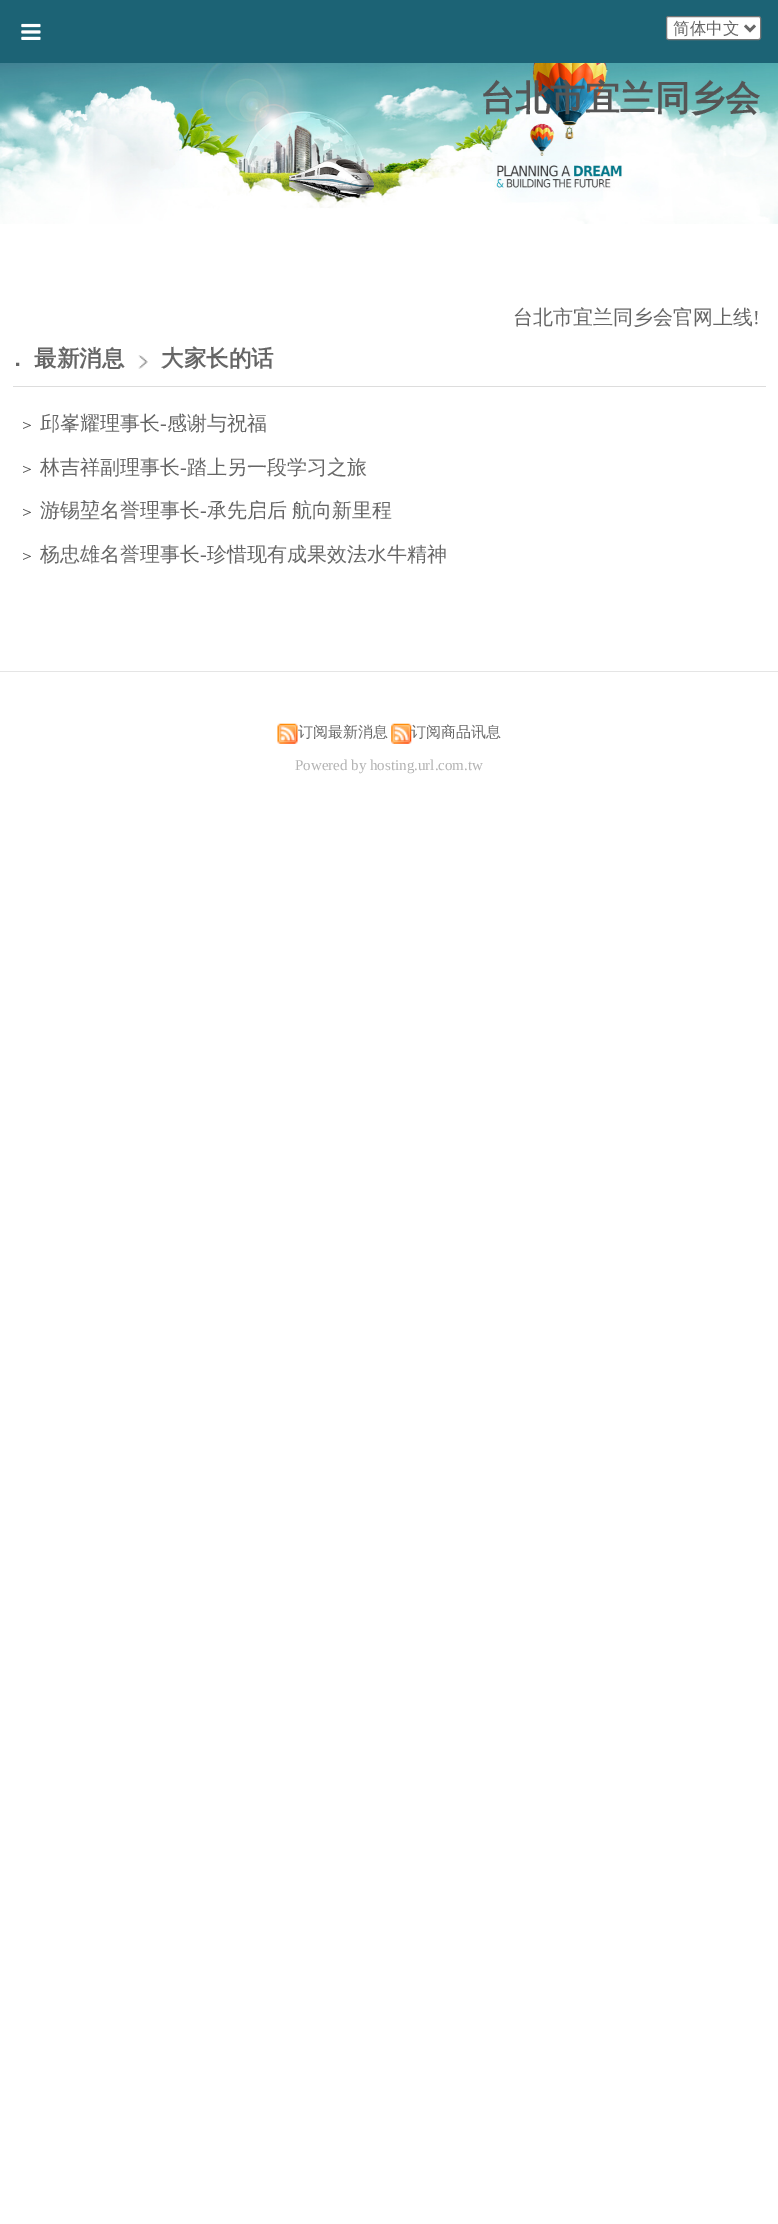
%!PS
<< /PageSize [778 2224] >> setpagedevice
/roundrect { 5 dict begin { /r /h /w /y /x } { exch def } forall
  x r add y moveto x w add y 2 copy h add r arct x w add y h add x 1 index r arct
  x y h add x y r arct x y 2 copy exch w add exch r arct closepath end } def
/picture { 5 dict begin { /h /w /y /x /name } { exch def } forall
  gsave x y translate w h scale
  w h 8 [w 0 0 h 0 0] name (r) file false 3 colorimage grestore end } def
0 2224 translate 1 -1 scale
4 setmiterlimit
1 setgray
0 0 778 2224 rectfill
0.11 0.388 0.459 setrgbcolor
0 0 778 63 rectfill
(img1.rgb) 21 23 20 17 picture
1 setgray
666.5 16.5 94 23 2 roundrect gsave fill grestore
0.463 setgray
stroke
0.4 setgray
2.5 setlinewidth
newpath 745 25.5 moveto 750 30.5 lineto 755 25.5 lineto stroke
/WenQuanYiZenHei-Medium [16.5 0 0 -16.5 0 0] selectfont
673 34 moveto (简体中文) show
(img2.rgb) 0 63 778 161 picture
/WenQuanYiZenHei-Bold [35 0 0 -35 0 0] selectfont
0.333 setgray
480 110 moveto (台北市宜兰同乡会) show
/WenQuanYiZenHei-Medium [20 0 0 -20 0 0] selectfont
0.4 setgray
513 324 moveto (台北市宜兰同乡会官网上线) show
/LiberationSerif-Regular [20 0 0 -20 0 0] selectfont
753 324 moveto (!) show
0.867 setgray
13 386 753 1 rectfill
/WenQuanYiZenHei-Bold [22.5 0 0 -22.5 0 0] selectfont
0.4 setgray
6 366 moveto (．) show
34 366 moveto (最新消息) show
(img3.rgb) 138 355 10 14 picture
161 366 moveto (大家长的话) show
/WenQuanYiZenHei-Medium [16 0 0 -16 0 0] selectfont
0.333 setgray
19 430 moveto (＞) show
/WenQuanYiZenHei-Medium [20 0 0 -20 0 0] selectfont
0.4 setgray
40 430 moveto (邱峯耀理事长) show
/LiberationSerif-Regular [20 0 0 -20 0 0] selectfont
160 430 moveto (-) show
/WenQuanYiZenHei-Medium [20 0 0 -20 0 0] selectfont
167 430 moveto (感谢与祝福) show
/WenQuanYiZenHei-Medium [16 0 0 -16 0 0] selectfont
0.333 setgray
19 474 moveto (＞) show
/WenQuanYiZenHei-Medium [20 0 0 -20 0 0] selectfont
0.4 setgray
40 474 moveto (林吉祥副理事长) show
/LiberationSerif-Regular [20 0 0 -20 0 0] selectfont
180 474 moveto (-) show
/WenQuanYiZenHei-Medium [20 0 0 -20 0 0] selectfont
187 474 moveto (踏上另一段学习之旅) show
/WenQuanYiZenHei-Medium [16 0 0 -16 0 0] selectfont
0.333 setgray
19 517 moveto (＞) show
/WenQuanYiZenHei-Medium [20 0 0 -20 0 0] selectfont
0.4 setgray
40 517 moveto (游锡堃名誉理事长) show
/LiberationSerif-Regular [20 0 0 -20 0 0] selectfont
200 517 moveto (-) show
/WenQuanYiZenHei-Medium [20 0 0 -20 0 0] selectfont
207 517 moveto -1 0 32 (承先启后 航向新里程) widthshow
/WenQuanYiZenHei-Medium [16 0 0 -16 0 0] selectfont
0.333 setgray
19 561 moveto (＞) show
/WenQuanYiZenHei-Medium [20 0 0 -20 0 0] selectfont
0.4 setgray
40 561 moveto (杨忠雄名誉理事长) show
/LiberationSerif-Regular [20 0 0 -20 0 0] selectfont
200 561 moveto (-) show
/WenQuanYiZenHei-Medium [20 0 0 -20 0 0] selectfont
207 561 moveto (珍惜现有成果效法水牛精神) show
0.898 setgray
0 671 778 1 rectfill
(img4.rgb) 277 723 21 21 picture
/WenQuanYiZenHei-Medium [15 0 0 -15 0 0] selectfont
0.4 setgray
298 737 moveto (订阅最新消息) show
(img5.rgb) 391 723 21 21 picture
411 737 moveto (订阅商品讯息) show
/LiberationSerif-Regular [15 0 0 -15 0 0] selectfont
0.702 setgray
295 770 moveto (Powered by hosting.url.com.tw) show
showpage
